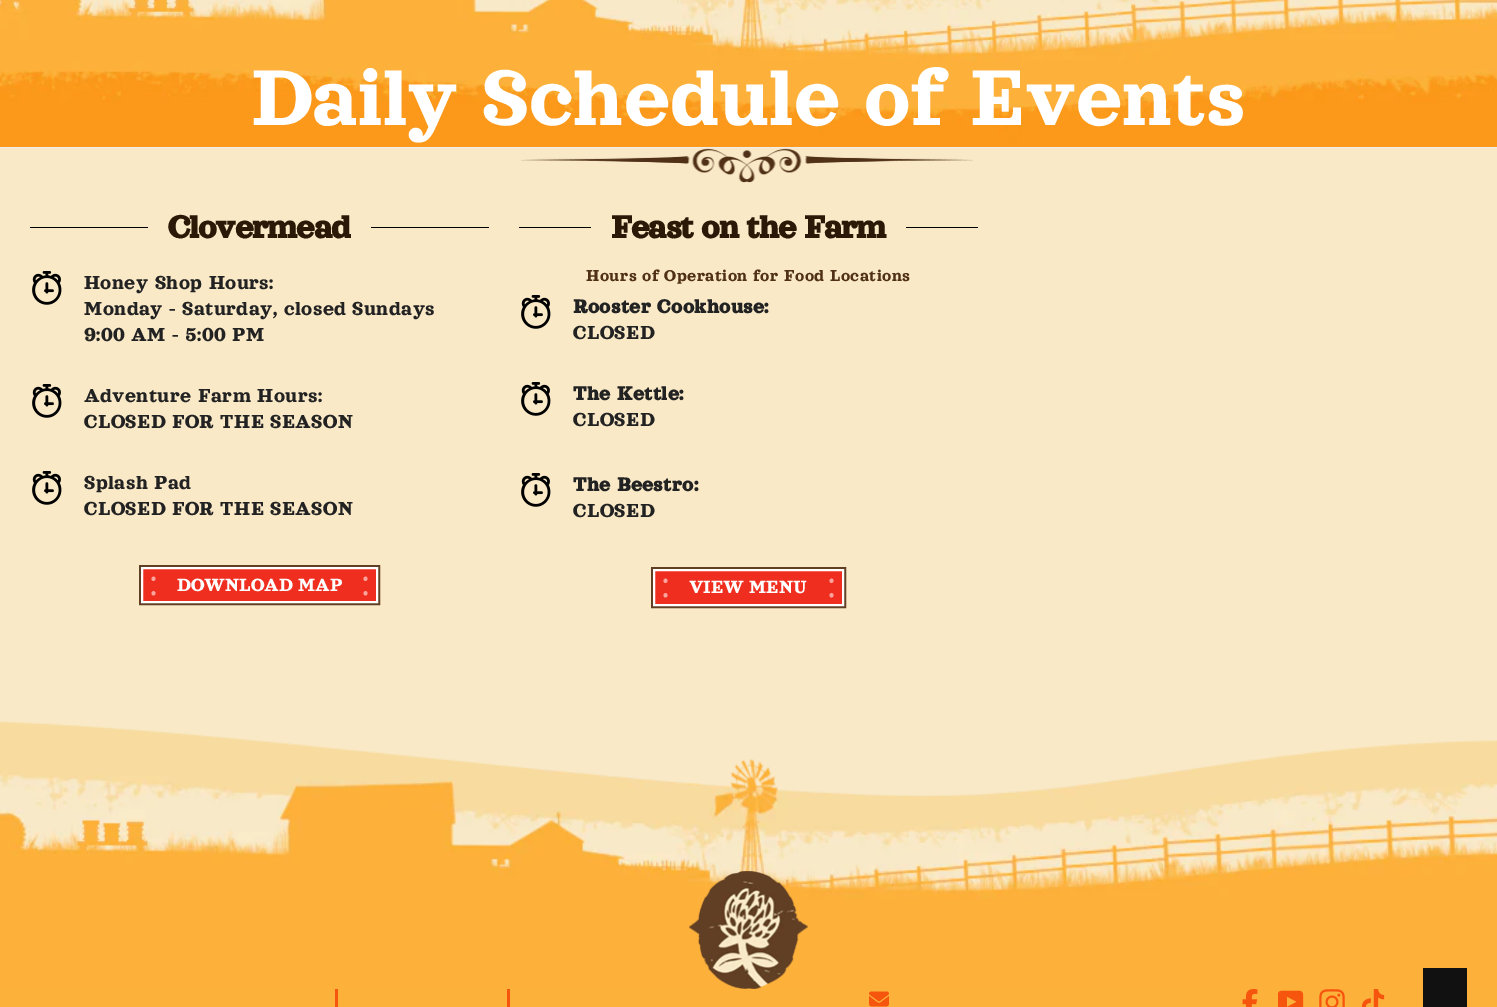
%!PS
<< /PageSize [1497 1007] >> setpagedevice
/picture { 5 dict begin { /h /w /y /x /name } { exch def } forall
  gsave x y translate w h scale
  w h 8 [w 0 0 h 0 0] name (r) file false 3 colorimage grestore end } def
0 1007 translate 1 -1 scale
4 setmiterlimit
0.976 0.914 0.78 setrgbcolor
0 0 1497 1007 rectfill
(img1.rgb) 0 0 1497 147 picture
/OrelegaOne-Regular [90 0 0 -90 0 0] selectfont
1 setgray
251 125 moveto (Daily Schedule of Events) show
(img2.rgb) 520 148 453 35 picture
0.933 setgray
0 147 1497 1 rectfill
0 setgray
30 227 118 1 rectfill
/OrelegaOne-Bold [36 0 0 -36 0 0] selectfont
0.173 0.094 0.027 setrgbcolor
168 238 moveto -1.1 0 (Clovermead) ashow
0 setgray
371 227 118 1 rectfill
(img3.rgb) 32 271 30 34 picture
/OrelegaOne-Regular [21.6 0 0 -21.6 0 0] selectfont
0.133 setgray
84 289 moveto 0.4 0 (Honey Shop Hours:) ashow
84 315 moveto 0.4 0 (Monday - Saturday, closed Sundays) ashow
84 341 moveto 0.4 0 (9:00 AM - 5:00 PM) ashow
(img3.rgb) 32 384 30 34 picture
84 402 moveto 0.4 0 (Adventure Farm Hours:) ashow
84 428 moveto 0.4 0 (CLOSED FOR THE SEASON) ashow
(img3.rgb) 32 471 30 34 picture
84 489 moveto 0.4 0 (Splash Pad) ashow
84 515 moveto 0.4 0 (CLOSED FOR THE SEASON) ashow
0.38 0.247 0.141 setrgbcolor
2 setlinewidth
140 566 239 38 rectstroke
0.937 0.18 0.122 setrgbcolor
newpath 142 568 moveto 377 568 lineto 377 602 lineto 142 602 lineto closepath gsave fill grestore
1 setgray
stroke
/Lora-Regular [36 0 0 -36 0 0] selectfont
0.98 0.643 0.616 setrgbcolor
149 595 moveto (:) show
/OrelegaOne-Regular [20.25 0 0 -20.25 0 0] selectfont
1 setgray
177 591 moveto (DOWNLOAD MAP) show
/Lora-Regular [36 0 0 -36 0 0] selectfont
0.98 0.643 0.616 setrgbcolor
361 595 moveto (:) show
0 setgray
519 227 72 1 rectfill
/OrelegaOne-Bold [36 0 0 -36 0 0] selectfont
0.173 0.094 0.027 setrgbcolor
611 238 moveto -1.1 0 (Feast on the Farm) ashow
0 setgray
906 227 72 1 rectfill
/OrelegaOne-Regular [18 0 0 -18 0 0] selectfont
0.314 0.188 0.09 setrgbcolor
586 281 moveto 0.4 0 (Hours of Operation for Food Locations) ashow
(img3.rgb) 521 295 30 34 picture
/OrelegaOne-Bold [21.6 0 0 -21.6 0 0] selectfont
0.133 setgray
573 313 moveto 0.4 0 (Rooster Cookhouse:) ashow
/OrelegaOne-Regular [21.6 0 0 -21.6 0 0] selectfont
573 339 moveto 0.4 0 (CLOSED) ashow
(img3.rgb) 521 382 30 34 picture
/OrelegaOne-Bold [21.6 0 0 -21.6 0 0] selectfont
573 400 moveto 0.4 0 (The Kettle:) ashow
/OrelegaOne-Regular [21.6 0 0 -21.6 0 0] selectfont
573 426 moveto 0.4 0 (CLOSED) ashow
(img3.rgb) 521 473 30 34 picture
/OrelegaOne-Bold [21.6 0 0 -21.6 0 0] selectfont
573 491 moveto 0.4 0 (The Beestro:) ashow
/OrelegaOne-Regular [21.6 0 0 -21.6 0 0] selectfont
573 517 moveto 0.4 0 (CLOSED) ashow
0.38 0.247 0.141 setrgbcolor
652 568 193 39 rectstroke
0.937 0.18 0.122 setrgbcolor
newpath 654 570 moveto 843 570 lineto 843 605 lineto 654 605 lineto closepath gsave fill grestore
1 setgray
stroke
/Lora-Regular [36 0 0 -36 0 0] selectfont
0.98 0.643 0.616 setrgbcolor
661 597 moveto (:) show
/OrelegaOne-Regular [20.25 0 0 -20.25 0 0] selectfont
1 setgray
689 593 moveto (VIEW MENU) show
/Lora-Regular [36 0 0 -36 0 0] selectfont
0.98 0.643 0.616 setrgbcolor
827 597 moveto (:) show
(img4.rgb) 0 721 1497 268 picture
(img5.rgb) 689 871 119 118 picture
0.988 0.694 0.227 setrgbcolor
0 989 1497 18 rectfill
0.965 0.333 0.055 setrgbcolor
335 989 3 18 rectfill
507 989 3 18 rectfill
(img6.rgb) 869 991 20 16 picture
(img7.rgb) 1242 989 16 18 picture
(img8.rgb) 1278 990 26 17 picture
(img9.rgb) 1319 989 26 18 picture
(img10.rgb) 1361 989 24 18 picture
0.067 setgray
1423 968 44 39 rectfill
showpage
